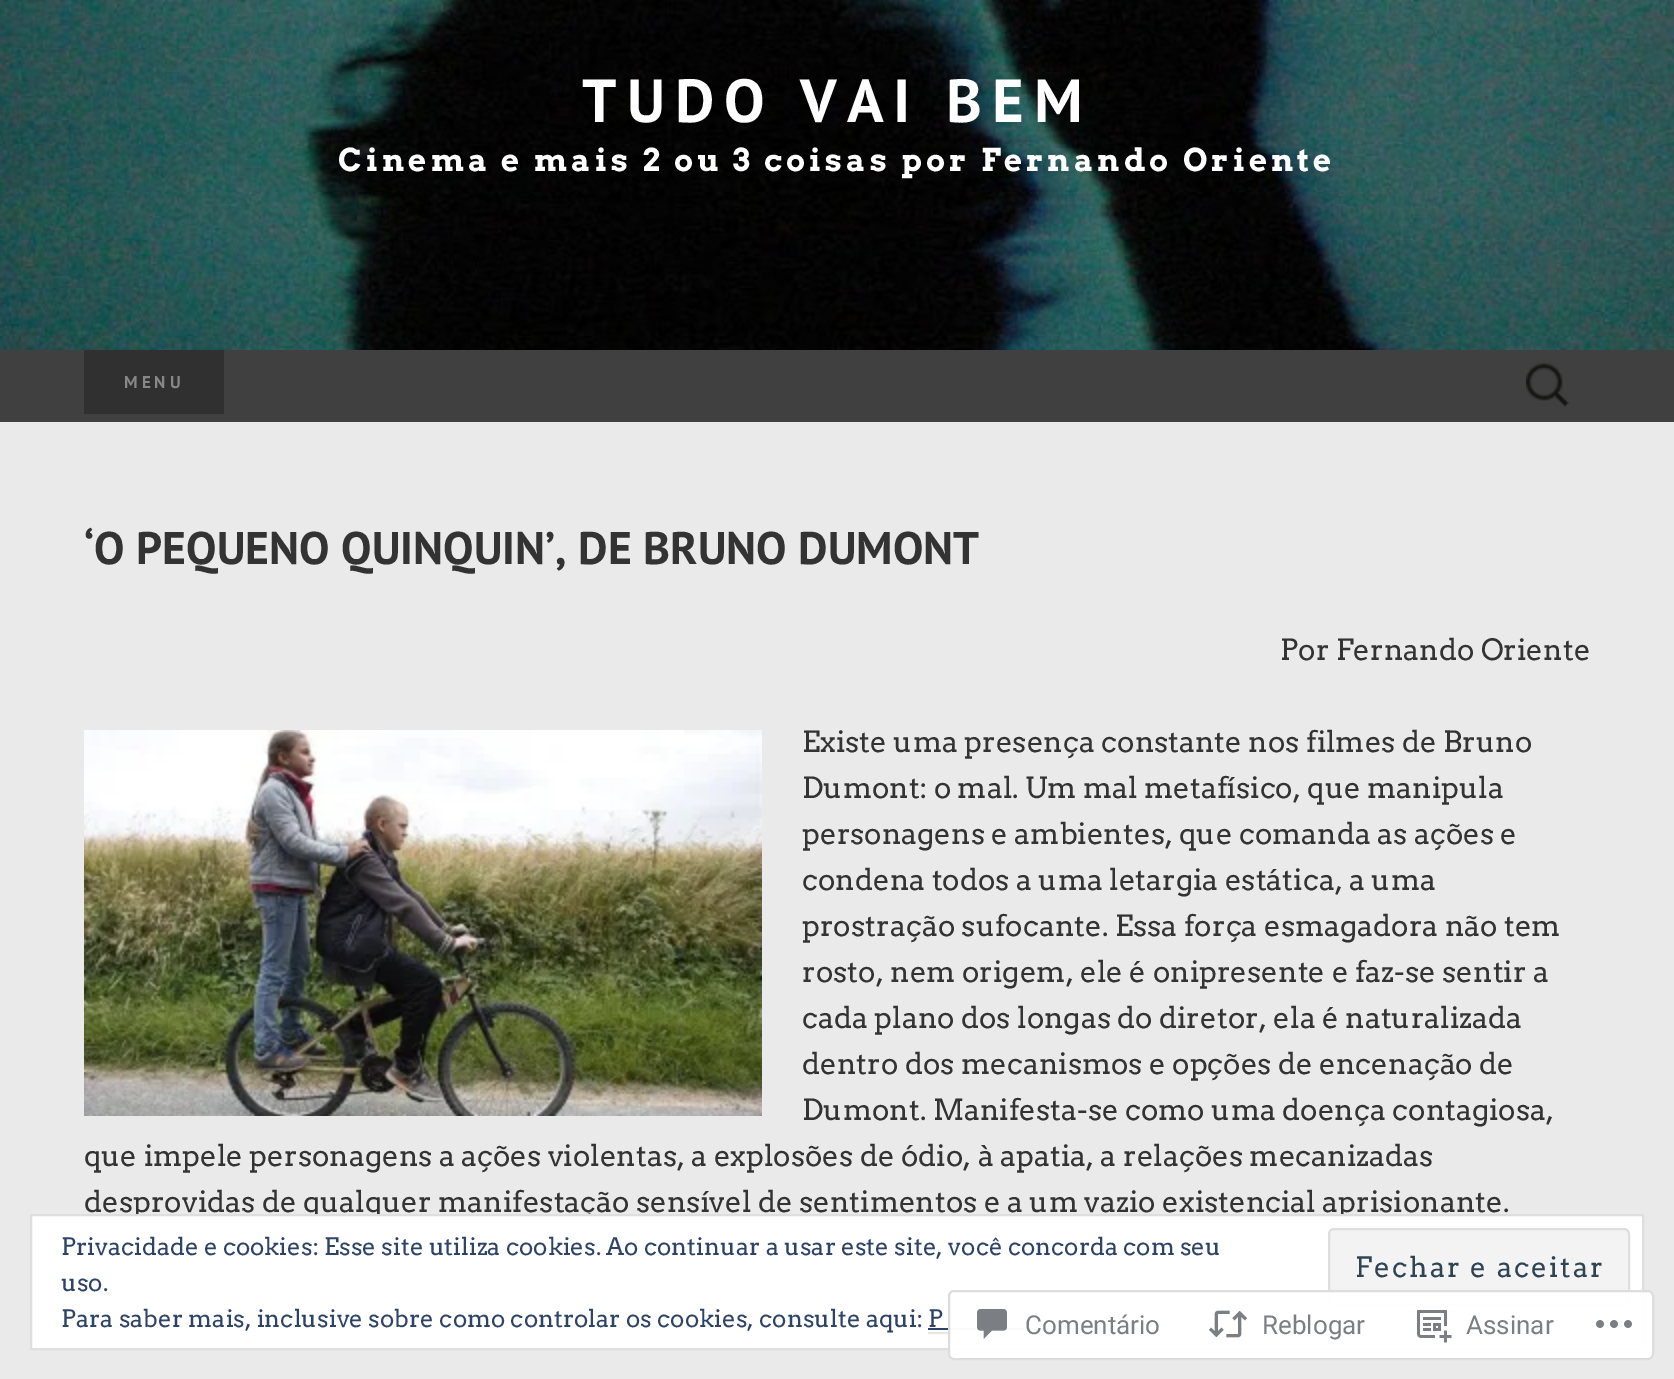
%!PS
<< /PageSize [1674 1379] /PageUsesTransparency true >> setpagedevice
/alpha { dup .setfillconstantalpha .setstrokeconstantalpha } def
/roundrect { 5 dict begin { /r /h /w /y /x } { exch def } forall
  x r add y moveto x w add y 2 copy h add r arct x w add y h add x 1 index r arct
  x y h add x y r arct x y 2 copy exch w add exch r arct closepath end } def
/picture { 5 dict begin { /h /w /y /x /name } { exch def } forall
  gsave x y translate w h scale
  w h 8 [w 0 0 h 0 0] name (r) file false 3 colorimage grestore end } def
0 .pushpdf14devicefilter
0 1379 translate 1 -1 scale
4 setmiterlimit
0.918 setgray
0 0 1674 1379 rectfill
(img1.rgb) 0 0 1674 350 picture
/PTSans-Bold [60.75 0 0 -60.75 0 0] selectfont
1 setgray
582 122 moveto 10 0 (TUDO VAI BEM) ashow
/Arvo-Bold [31.4 0 0 -31.4 0 0] selectfont
338 171 moveto 4 0 (Cinema e mais 2 ou 3 coisas por Fernando Oriente) ashow
0.251 setgray
0 350 1674 72 rectfill
0.188 setgray
84 350 140 64 rectfill
/PTSans-Bold [17 0 0 -17 0 0] selectfont
0.533 setgray
124 388 moveto 4 0 (MENU) ashow
(img2.rgb) 1526 363 43 44 picture
/PTSans-Bold [45.6 0 0 -45.6 0 0] selectfont
0.2 setgray
84 564 moveto (‘O PEQUENO QUINQUIN’, DE BRUNO DUMONT) show
/Arvo-Regular [29.2 0 0 -29.2 0 0] selectfont
1280 660 moveto (Por Fernando Oriente) show
(img3.rgb) 84 730 678 386 picture
802 752 moveto (Existe uma presença constante nos filmes de Bruno) show
802 798 moveto (Dumont: o mal. Um mal metafísico, que manipula) show
802 844 moveto (personagens e ambientes, que comanda as ações e) show
802 890 moveto (condena todos a uma letargia estática, a uma) show
802 936 moveto (prostração sufocante. Essa força esmagadora não tem) show
802 982 moveto (rosto, nem origem, ele é onipresente e faz-se sentir a) show
802 1028 moveto (cada plano dos longas do diretor, ela é naturalizada) show
802 1074 moveto (dentro dos mecanismos e opções de encenação de) show
802 1120 moveto (Dumont. Manifesta-se como uma doença contagiosa,) show
84 1166 moveto (que impele personagens a ações violentas, a explosões de ódio, à apatia, a relações mecanizadas) show
84 1212 moveto (desprovidas de qualquer manifestação sensível de sentimentos e a um vazio existencial aprisionante.) show
1 setgray
newpath 31 1215 moveto 1643 1215 lineto 1643 1349 lineto 31 1349 lineto closepath gsave fill grestore
0.871 setgray
2 setlinewidth
stroke
/Arvo-Regular [24 0 0 -24 0 0] selectfont
0.18 0.267 0.404 setrgbcolor
61 1255 moveto (Privacidade e cookies: Esse site utiliza cookies. Ao continuar a usar este site, você concorda com seu) show
0.953 setgray
1329 1229 300 76 5 roundrect gsave fill grestore
0.871 setgray
stroke
/Arvo-Regular [28 0 0 -28 0 0] selectfont
0.18 0.267 0.325 setrgbcolor
1355 1277 moveto 2 0 (Fechar e aceitar) ashow
/Arvo-Regular [24 0 0 -24 0 0] selectfont
0.18 0.267 0.404 setrgbcolor
61 1291 moveto (uso.) show
61 1327 moveto (Para saber mais, inclusive sobre como controlar os cookies, consulte aqui: P) show
928 1328 216 2 rectfill
0.902 setgray
928 1332 216 2 rectfill
0.98 alpha
1 setgray
948 1290 706 70 6 roundrect fill
0.863 0.863 0.871 setrgbcolor
949 1291 704 68 5 roundrect stroke
1 alpha
(img4.rgb) 977 1309 30 30 picture
/Roboto-Regular [26 0 0 -26 0 0] selectfont
0.482 0.498 0.518 setrgbcolor
1025 1334 moveto (Comentário) show
(img5.rgb) 1208 1310 40 28 picture
1262 1334 moveto (Reblogar) show
(img6.rgb) 1417 1310 35 33 picture
1466 1334 moveto (Assinar) show
(img7.rgb) 1596 1320 36 8 picture
.poppdf14devicefilter showpage
